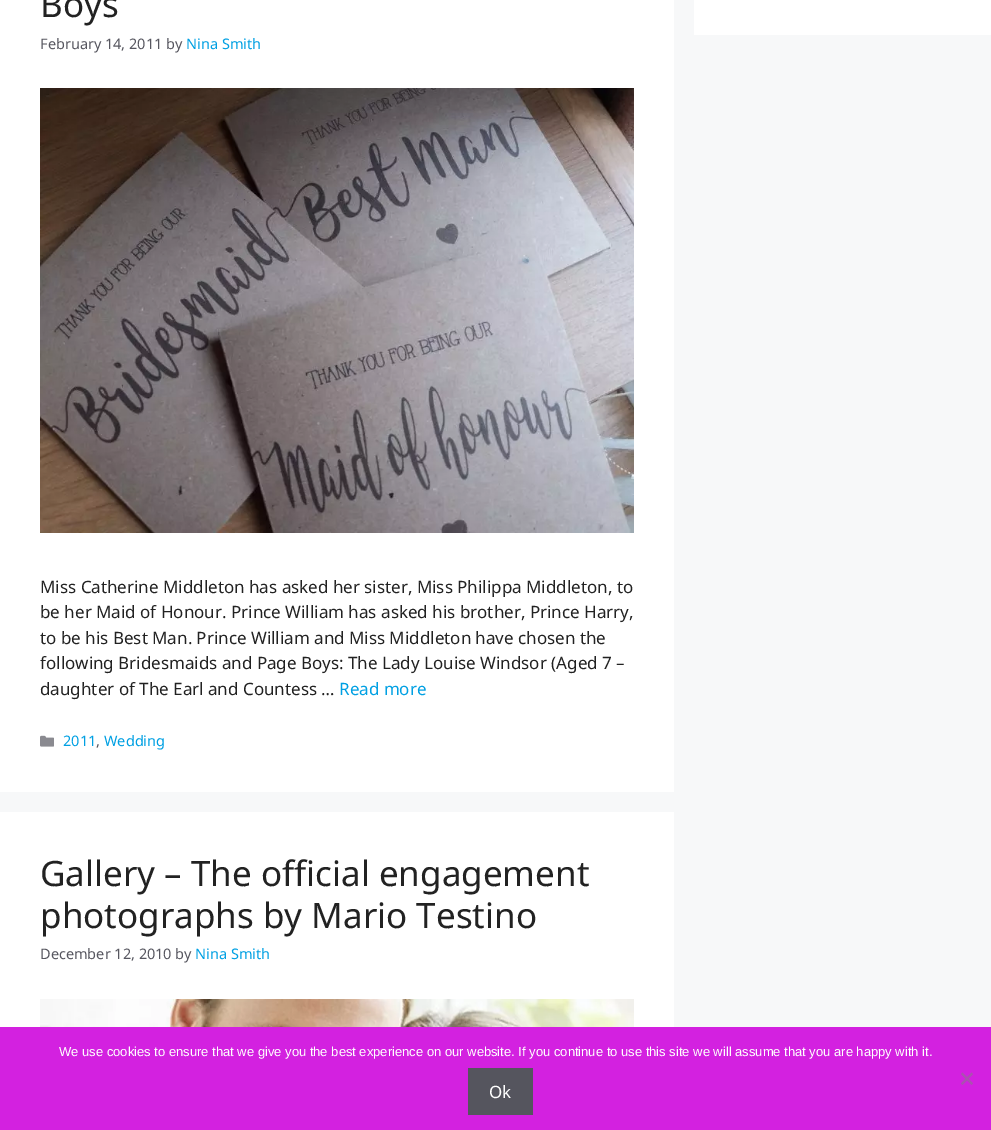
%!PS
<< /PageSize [991 1130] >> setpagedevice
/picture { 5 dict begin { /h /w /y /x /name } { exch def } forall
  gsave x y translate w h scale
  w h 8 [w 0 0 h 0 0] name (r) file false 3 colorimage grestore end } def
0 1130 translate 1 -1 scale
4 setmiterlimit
0.969 0.973 0.976 setrgbcolor
0 0 991 1130 rectfill
1 setgray
0 0 674 792 rectfill
/NotoSans-Regular [35 0 0 -35 0 0] selectfont
0.133 setgray
40 17 moveto (Boys) show
/NotoSans-Regular [14.5 0 0 -14.5 0 0] selectfont
0.341 0.341 0.376 setrgbcolor
40 49 moveto (February 14, 2011 by) show
0 0.627 0.89 setrgbcolor
186 49 moveto (Nina Smith) show
(img1.rgb) 40 88 594 445 picture
/NotoSans-Regular [17 0 0 -17 0 0] selectfont
0.133 setgray
40 593 moveto (Miss Catherine Middleton has asked her sister, Miss Philippa Middleton, to) show
40 618 moveto (be her Maid of Honour. Prince William has asked his brother, Prince Harry,) show
40 644 moveto (to be his Best Man. Prince William and Miss Middleton have chosen the) show
40 669 moveto (following Bridesmaids and Page Boys: The Lady Louise Windsor \(Aged 7 –) show
40 695 moveto (daughter of The Earl and Countess …) show
0 0.627 0.89 setrgbcolor
339 695 moveto (Read more) show
(img2.rgb) 40 735 14 12 picture
/NotoSans-Regular [14.5 0 0 -14.5 0 0] selectfont
63 746 moveto (2011) show
0.341 0.341 0.376 setrgbcolor
96 746 moveto (,) show
0 0.627 0.89 setrgbcolor
104 746 moveto (Wedding) show
1 setgray
0 812 674 215 rectfill
/NotoSans-Regular [35 0 0 -35 0 0] selectfont
0.133 setgray
40 886 moveto (Gallery – The official engagement) show
40 928 moveto (photographs by Mario Testino) show
/NotoSans-Regular [14.5 0 0 -14.5 0 0] selectfont
0.341 0.341 0.376 setrgbcolor
40 959 moveto (December 12, 2010 by) show
0 0.627 0.89 setrgbcolor
195 959 moveto (Nina Smith) show
(img3.rgb) 40 999 594 28 picture
1 setgray
694 0 297 35 rectfill
0.827 0.129 0.878 setrgbcolor
0 1027 991 103 rectfill
/LiberationSans-Regular [13 0 0 -13 0 0] selectfont
1 setgray
59 1056 moveto (We use cookies to ensure that we give you the best experience on our website. If you continue to use this site we will assume that you are happy with it.) show
0.667 0.318 0.69 setrgbcolor
newpath 971.5 1072.5 moveto 973 1074 lineto 962.5 1085 lineto 961 1083.5 lineto closepath fill
newpath 961 1074 moveto 962.5 1072.5 lineto 973 1083.5 lineto 971.5 1085 lineto closepath fill
0.333 0.333 0.369 setrgbcolor
468 1068 65 47 rectfill
/NotoSans-Regular [17 0 0 -17 0 0] selectfont
1 setgray
489 1098 moveto (Ok) show
showpage
